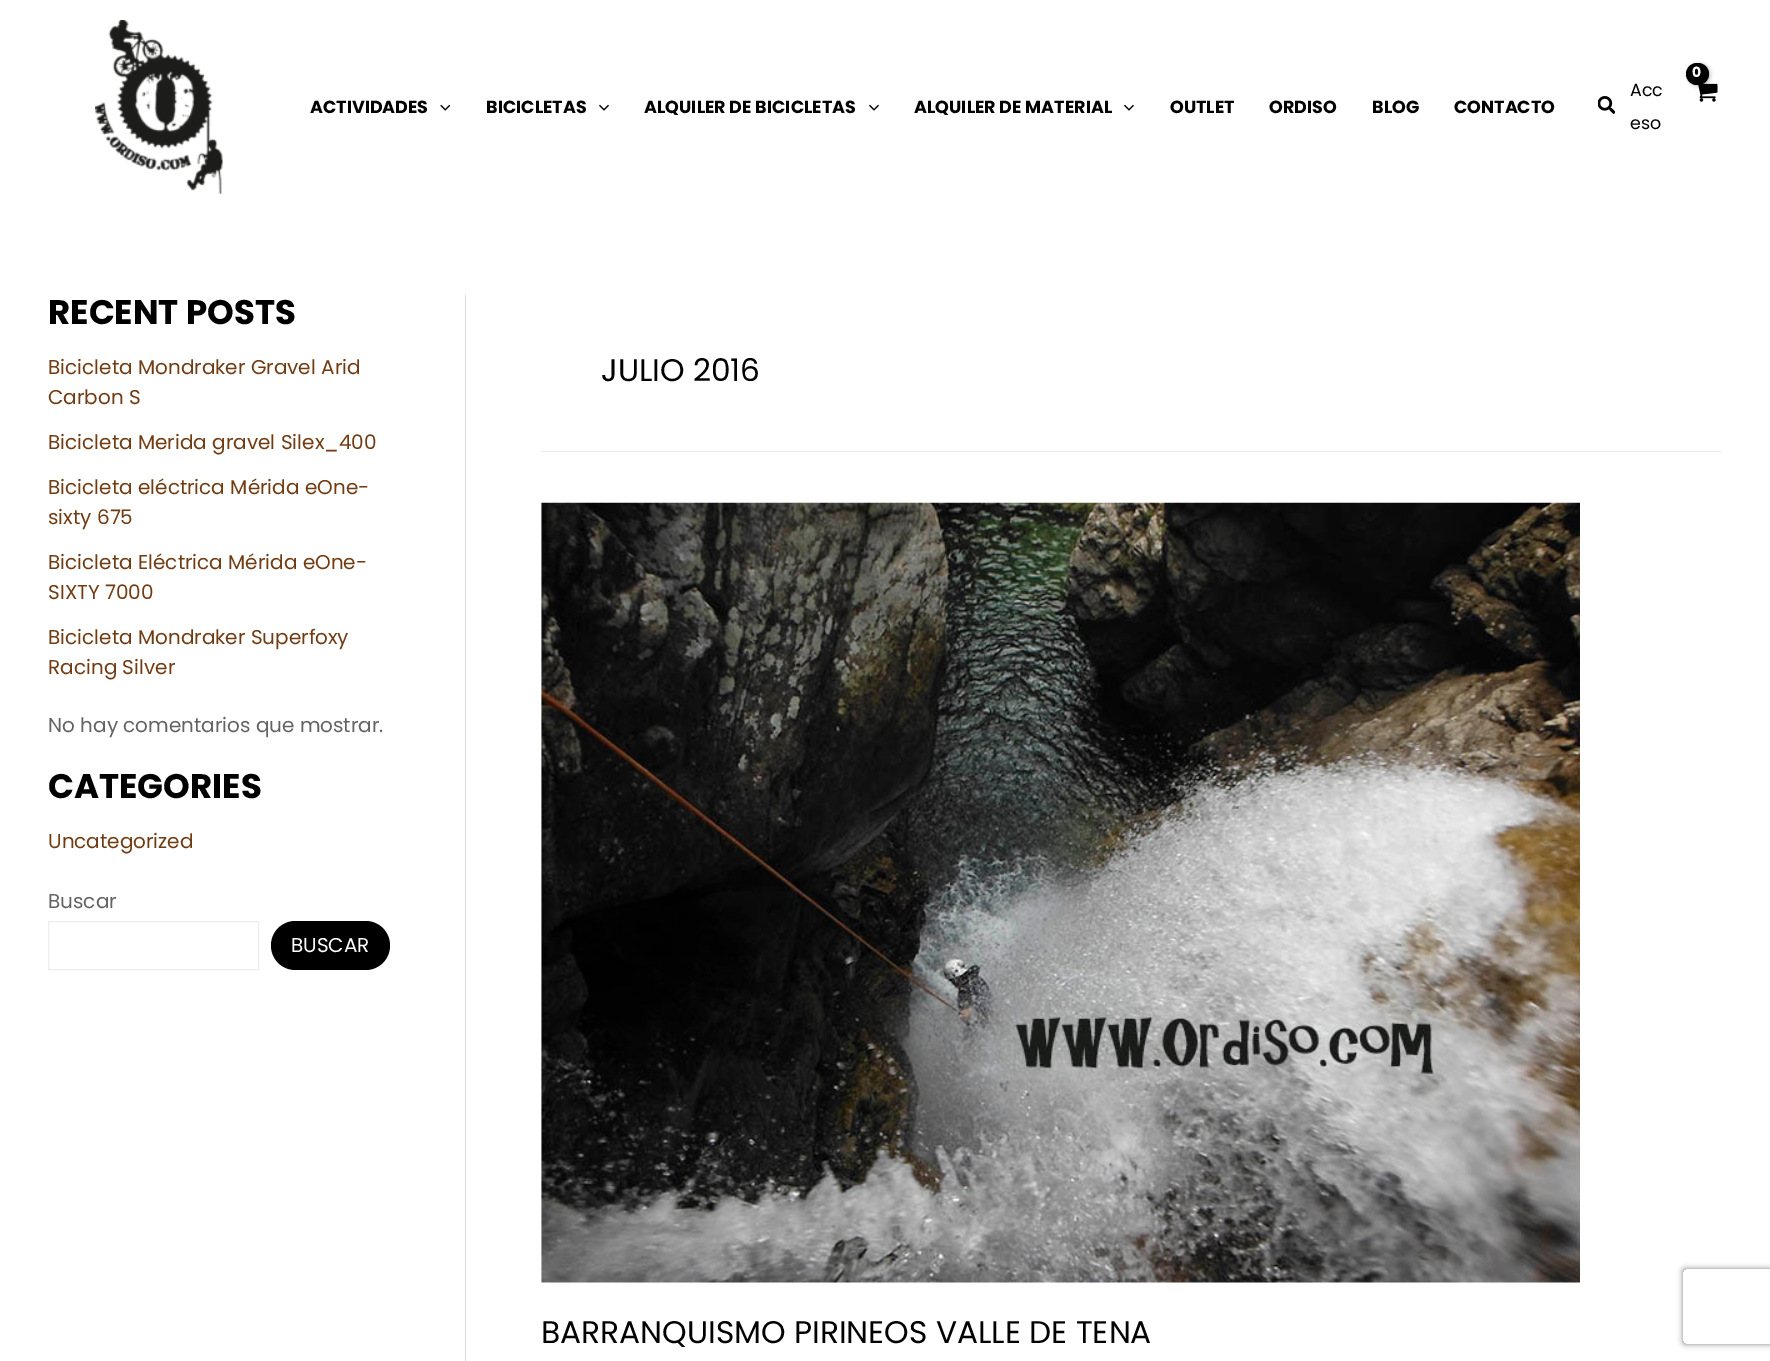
%!PS
<< /PageSize [1770 1361] /PageUsesTransparency true >> setpagedevice
/alpha { dup .setfillconstantalpha .setstrokeconstantalpha } def
/roundrect { 5 dict begin { /r /h /w /y /x } { exch def } forall
  x r add y moveto x w add y 2 copy h add r arct x w add y h add x 1 index r arct
  x y h add x y r arct x y 2 copy exch w add exch r arct closepath end } def
/shadow { 12 dict begin { /a /b /q /h /w /y /x } { exch def } forall gsave /was 0 def
  9 -2 -9 { dup b mul 4 div /e exch def 1 sub .425 mul 2.718 exch exp 1 add a .99 .min exch div /now exch def
    1 1 now sub 1 was sub div sub alpha /was now def
    w h .min e 2 mul add 0 gt { x e sub y e sub w e 2 mul add h e 2 mul add
      q e add b .6 mul add w h .min 2 div e add .min 0 .max roundrect fill } if } for grestore end } def
/picture { 5 dict begin { /h /w /y /x /name } { exch def } forall
  gsave x y translate w h scale
  w h 8 [w 0 0 h 0 0] name (r) file false 3 colorimage grestore end } def
0 .pushpdf14devicefilter
0 1361 translate 1 -1 scale
4 setmiterlimit
1 setgray
0 0 1770 1361 rectfill
(img1.rgb) 95 20 128 174 picture
/Poppins-Bold [17.5 0 0 -17.5 0 0] selectfont
0 setgray
310 113 moveto (ACTIVIDADES) show
(img2.rgb) 440 104 11 7 picture
486 113 moveto (BICICLETAS) show
(img3.rgb) 599 104 10 7 picture
644 113 moveto (ALQUILER DE BICICLETAS) show
(img3.rgb) 869 104 10 7 picture
914 113 moveto (ALQUILER DE MATERIAL) show
(img3.rgb) 1124 104 10 7 picture
1170 113 moveto (OUTLET) show
1269 113 moveto (ORDISO) show
1372 113 moveto (BLOG) show
1454 113 moveto (CONTACTO) show
(img4.rgb) 1698 83 20 19 picture
1688 64 22 22 11 2 0.3 shadow
1686 63 23 22 11 roundrect fill
/Poppins-Bold [14 0 0 -14 0 0] selectfont
1 setgray
1692 77 moveto -1 0 (0) ashow
(img5.rgb) 1598 96 17 18 picture
/Poppins-Regular [17.5 0 0 -17.5 0 0] selectfont
0 setgray
1630 96 moveto (Acc) show
1630 129 moveto (eso) show
/Poppins-Bold [34 0 0 -34 0 0] selectfont
48 324 moveto (RECENT POSTS) show
/Poppins-Regular [20 0 0 -20 0 0] selectfont
0.443 0.235 0.075 setrgbcolor
48 374 moveto (Bicicleta Mondraker Gravel Arid) show
48 404 moveto (Carbon S) show
48 449 moveto (Bicicleta Merida gravel Silex_400) show
48 494 moveto (Bicicleta eléctrica Mérida eOne-) show
48 524 moveto (sixty 675) show
48 569 moveto (Bicicleta Eléctrica Mérida eOne-) show
48 599 moveto (SIXTY 7000) show
48 644 moveto (Bicicleta Mondraker Superfoxy) show
48 674 moveto (Racing Silver) show
0.388 setgray
48 732 moveto (No hay comentarios que mostrar.) show
/Poppins-Bold [34 0 0 -34 0 0] selectfont
0 setgray
48 798 moveto (CATEGORIES) show
/Poppins-Regular [20 0 0 -20 0 0] selectfont
0.443 0.235 0.075 setrgbcolor
48 848 moveto (Uncategorized) show
0.388 setgray
48 908 moveto (Buscar) show
0.929 setgray
48.5 921.5 210 48 rectstroke
0 setgray
271 921 119 49 24.5 roundrect fill
1 setgray
291 952 moveto (BUSCAR) show
0.863 setgray
465 295 1 1066 rectfill
0.929 setgray
541 451 1180 1 rectfill
/Poppins-Regular [31.25 0 0 -31.25 0 0] selectfont
0 setgray
601 381 moveto (JULIO 2016) show
(img6.rgb) 541 502 1039 781 picture
541 1343 moveto (BARRANQUISMO PIRINEOS VALLE DE TENA) show
gsave
newpath 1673 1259 moveto 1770 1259 lineto 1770 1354 lineto 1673 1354 lineto closepath 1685.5 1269 moveto 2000.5 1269 lineto 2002 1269 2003 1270 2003 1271.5 curveto 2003 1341.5 lineto 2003 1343 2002 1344 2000.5 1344 curveto 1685.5 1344 lineto 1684 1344 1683 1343 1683 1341.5 curveto 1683 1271.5 lineto 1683 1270 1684 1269 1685.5 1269 curveto closepath eoclip newpath
0.502 setgray
1683 1269 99 75 2.5 3 1 shadow
grestore
.poppdf14devicefilter showpage
